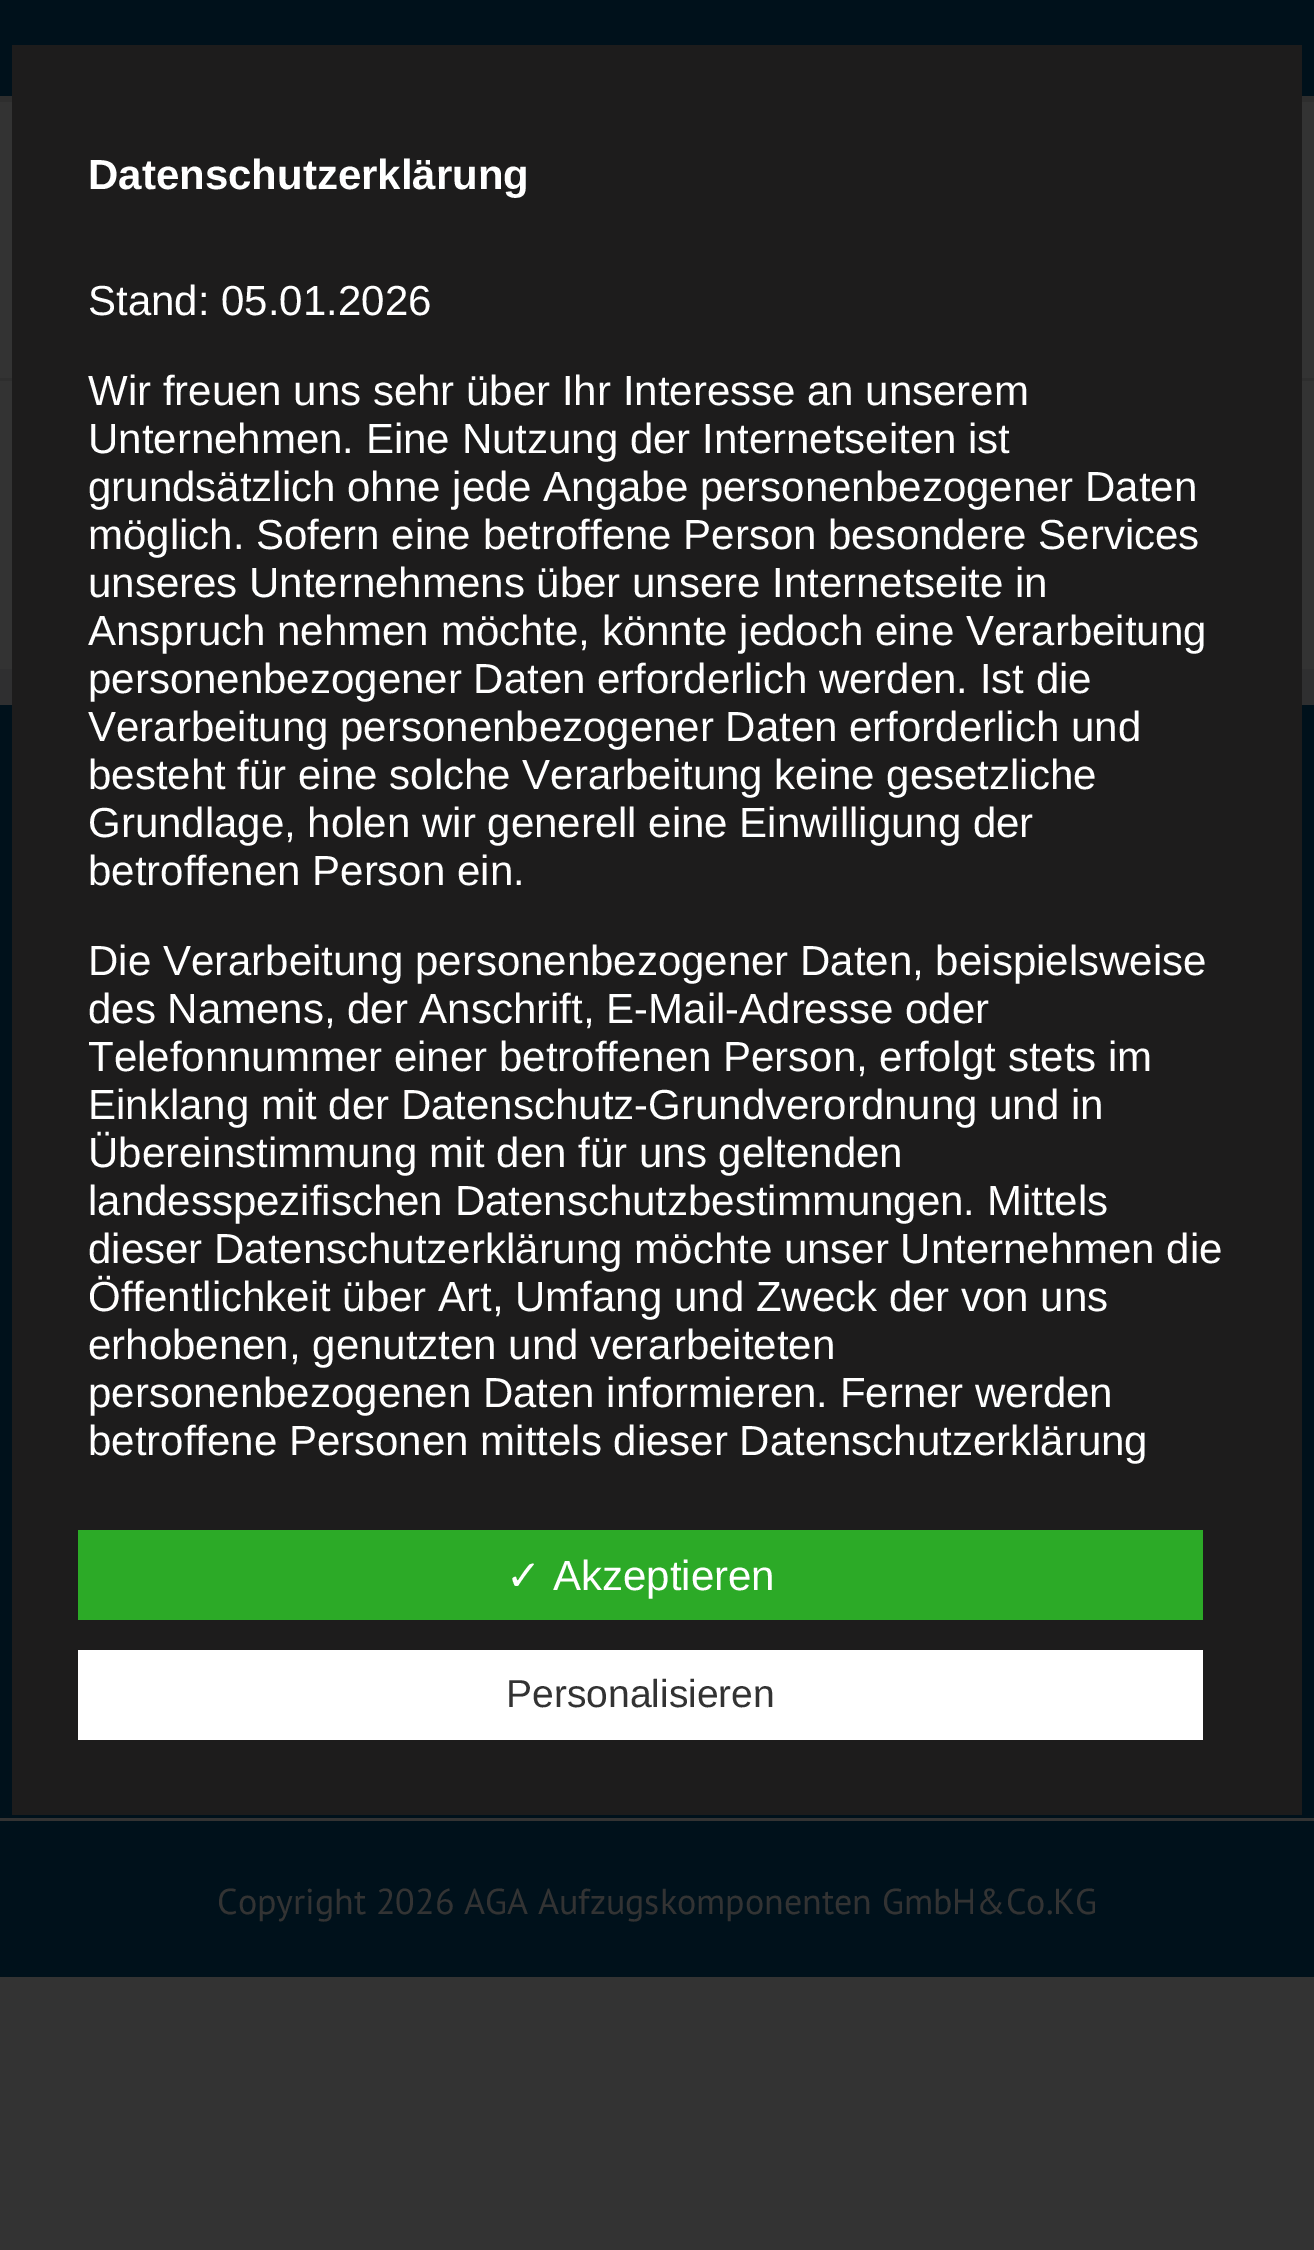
%!PS
<< /PageSize [1314 2250] >> setpagedevice
0 2250 translate 1 -1 scale
4 setmiterlimit
0.2 setgray
0 0 1314 2250 rectfill
0 0.067 0.106 setrgbcolor
0 0 1314 96 rectfill
0.18 setgray
0 96 1314 6 rectfill
0 378 1314 3 rectfill
0 0.067 0.106 setrgbcolor
0 705 1314 1113 rectfill
0.184 0.184 0.188 setrgbcolor
0 669 1314 36 rectfill
0.114 0.11 0.11 setrgbcolor
12 45 1290 1770 rectfill
/LiberationSans-Bold [42 0 0 -42 0 0] selectfont
1 setgray
88 189 moveto (Datenschutzerklärung) show
/LiberationSans-Regular [42 0 0 -42 0 0] selectfont
88 315 moveto (Stand: 05.01.2026) show
88 405 moveto (Wir freuen uns sehr über Ihr Interesse an unserem) show
88 453 moveto (Unternehmen. Eine Nutzung der Internetseiten ist) show
88 501 moveto (grundsätzlich ohne jede Angabe personenbezogener Daten) show
88 549 moveto (möglich. Sofern eine betroffene Person besondere Services) show
88 597 moveto (unseres Unternehmens über unsere Internetseite in) show
88 645 moveto (Anspruch nehmen möchte, könnte jedoch eine Verarbeitung) show
88 693 moveto (personenbezogener Daten erforderlich werden. Ist die) show
88 741 moveto (Verarbeitung personenbezogener Daten erforderlich und) show
88 789 moveto (besteht für eine solche Verarbeitung keine gesetzliche) show
88 837 moveto (Grundlage, holen wir generell eine Einwilligung der) show
88 885 moveto (betroffenen Person ein.) show
88 975 moveto (Die Verarbeitung personenbezogener Daten, beispielsweise) show
88 1023 moveto (des Namens, der Anschrift, E-Mail-Adresse oder) show
88 1071 moveto (Telefonnummer einer betroffenen Person, erfolgt stets im) show
88 1119 moveto (Einklang mit der Datenschutz-Grundverordnung und in) show
88 1167 moveto (Übereinstimmung mit den für uns geltenden) show
88 1215 moveto (landesspezifischen Datenschutzbestimmungen. Mittels) show
88 1263 moveto (dieser Datenschutzerklärung möchte unser Unternehmen die) show
88 1311 moveto (Öffentlichkeit über Art, Umfang und Zweck der von uns) show
88 1359 moveto (erhobenen, genutzten und verarbeiteten) show
88 1407 moveto (personenbezogenen Daten informieren. Ferner werden) show
88 1455 moveto (betroffene Personen mittels dieser Datenschutzerklärung) show
0.173 0.667 0.153 setrgbcolor
78 1530 1125 90 rectfill
/DejaVuSans-Regular [42 0 0 -42 0 0] selectfont
1 setgray
506 1590 moveto (✓) show
/LiberationSans-Regular [42 0 0 -42 0 0] selectfont
553 1590 moveto (Akzeptieren) show
78 1650 1125 90 rectfill
/LiberationSans-Regular [39 0 0 -39 0 0] selectfont
0.2 setgray
506 1707 moveto (Personalisieren) show
0 0.067 0.106 setrgbcolor
0 1821 1314 156 rectfill
/PTSans-Regular [36 0 0 -36 0 0] selectfont
0.2 setgray
217 1914 moveto (Copyright 2026 AGA Aufzugskomponenten GmbH&Co.KG) show
showpage
